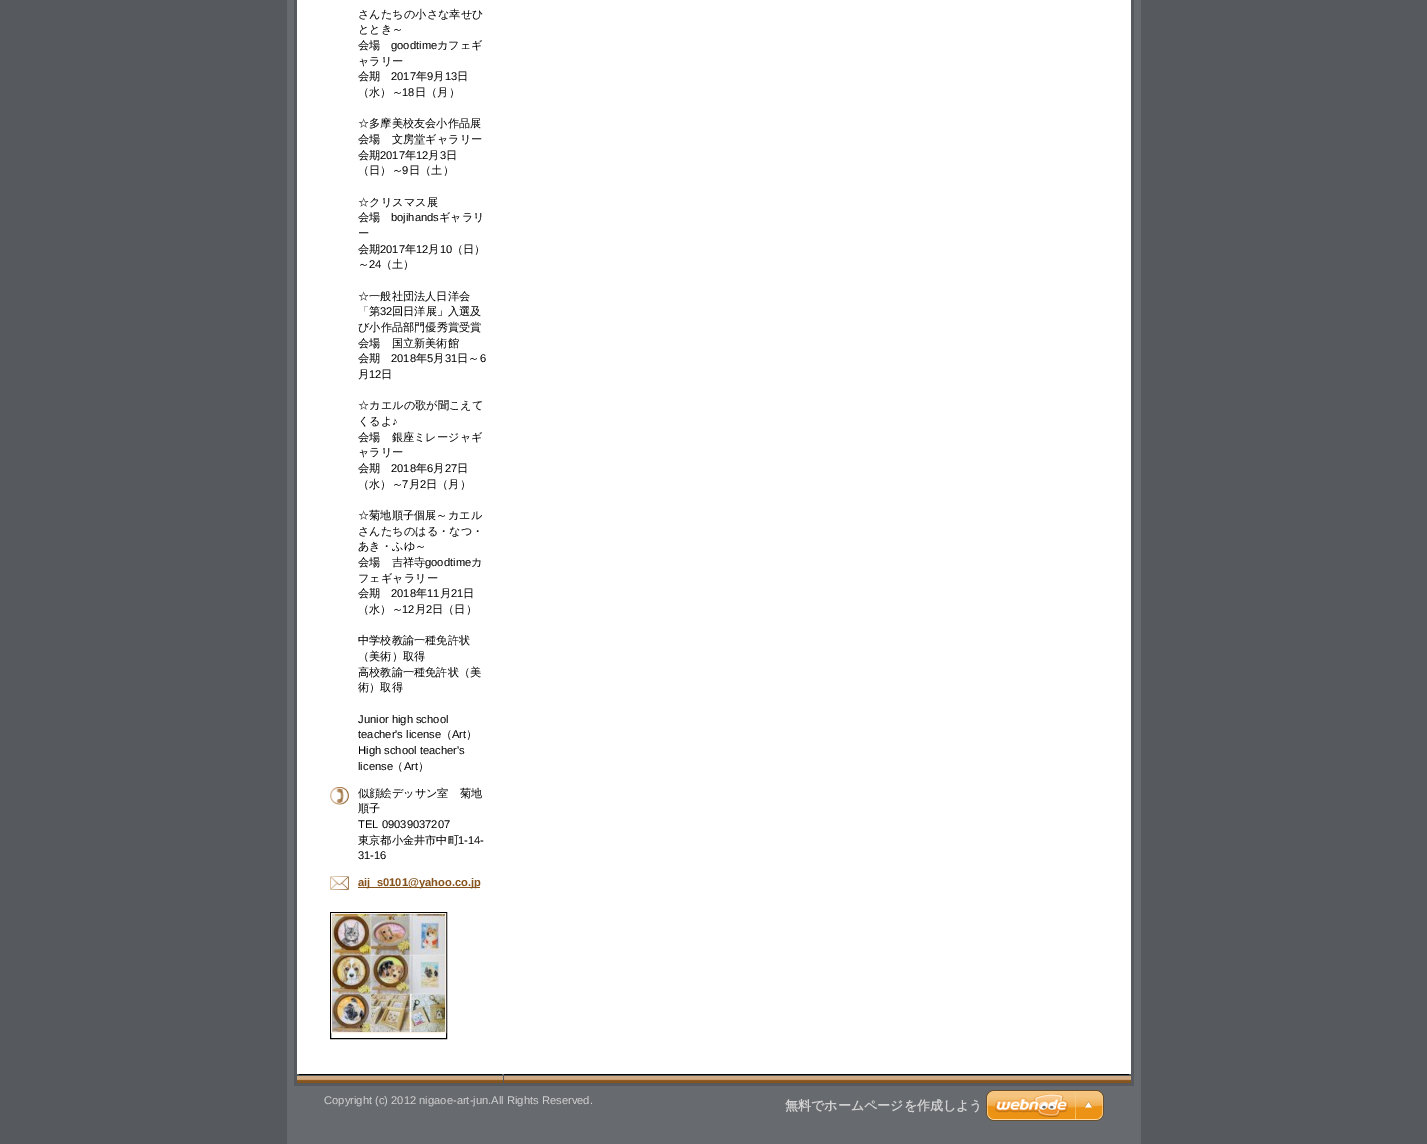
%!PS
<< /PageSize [1427 1144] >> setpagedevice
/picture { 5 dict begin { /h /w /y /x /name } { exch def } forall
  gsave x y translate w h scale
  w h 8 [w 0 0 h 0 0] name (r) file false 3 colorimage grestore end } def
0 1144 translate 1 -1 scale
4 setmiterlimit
0.337 0.349 0.365 setrgbcolor
0 0 1427 1144 rectfill
0.404 0.416 0.431 setrgbcolor
287 0 854 1144 rectfill
(img1.rgb) 294 0 840 1074 picture
/WenQuanYiZenHei-Medium [11.2 0 0 -11.2 0 0] selectfont
0 setgray
358 18 moveto (さんたちの小さな幸せひ) show
358 33 moveto (ととき～) show
358 49 moveto (会場) show
/LiberationSans-Regular [11.2 0 0 -11.2 0 0] selectfont
391 49 moveto (goodtime) show
/WenQuanYiZenHei-Medium [11.2 0 0 -11.2 0 0] selectfont
437 49 moveto (カフェギ) show
358 65 moveto (ャラリー) show
358 80 moveto (会期) show
/LiberationSans-Regular [11.2 0 0 -11.2 0 0] selectfont
391 80 moveto (2017) show
/WenQuanYiZenHei-Medium [11.2 0 0 -11.2 0 0] selectfont
416 80 moveto (年) show
/LiberationSans-Regular [11.2 0 0 -11.2 0 0] selectfont
427 80 moveto (9) show
/WenQuanYiZenHei-Medium [11.2 0 0 -11.2 0 0] selectfont
433 80 moveto (月) show
/LiberationSans-Regular [11.2 0 0 -11.2 0 0] selectfont
445 80 moveto (13) show
/WenQuanYiZenHei-Medium [11.2 0 0 -11.2 0 0] selectfont
457 80 moveto (日) show
358 96 moveto (（水）～) show
/LiberationSans-Regular [11.2 0 0 -11.2 0 0] selectfont
402 96 moveto (18) show
/WenQuanYiZenHei-Medium [11.2 0 0 -11.2 0 0] selectfont
415 96 moveto (日（月）) show
358 127 moveto (☆多摩美校友会小作品展) show
358 143 moveto (会場　文房堂ギャラリー) show
358 159 moveto (会期) show
/LiberationSans-Regular [11.2 0 0 -11.2 0 0] selectfont
380 159 moveto (2017) show
/WenQuanYiZenHei-Medium [11.2 0 0 -11.2 0 0] selectfont
405 159 moveto (年) show
/LiberationSans-Regular [11.2 0 0 -11.2 0 0] selectfont
416 159 moveto (12) show
/WenQuanYiZenHei-Medium [11.2 0 0 -11.2 0 0] selectfont
428 159 moveto (月) show
/LiberationSans-Regular [11.2 0 0 -11.2 0 0] selectfont
440 159 moveto (3) show
/WenQuanYiZenHei-Medium [11.2 0 0 -11.2 0 0] selectfont
446 159 moveto (日) show
358 174 moveto (（日）～) show
/LiberationSans-Regular [11.2 0 0 -11.2 0 0] selectfont
402 174 moveto (9) show
/WenQuanYiZenHei-Medium [11.2 0 0 -11.2 0 0] selectfont
409 174 moveto (日（土）) show
358 206 moveto (☆クリスマス展) show
358 221 moveto (会場) show
/LiberationSans-Regular [11.2 0 0 -11.2 0 0] selectfont
391 221 moveto (bojihands) show
/WenQuanYiZenHei-Medium [11.2 0 0 -11.2 0 0] selectfont
439 221 moveto (ギャラリ) show
358 237 moveto (ー) show
358 253 moveto (会期) show
/LiberationSans-Regular [11.2 0 0 -11.2 0 0] selectfont
380 253 moveto (2017) show
/WenQuanYiZenHei-Medium [11.2 0 0 -11.2 0 0] selectfont
405 253 moveto (年) show
/LiberationSans-Regular [11.2 0 0 -11.2 0 0] selectfont
416 253 moveto (12) show
/WenQuanYiZenHei-Medium [11.2 0 0 -11.2 0 0] selectfont
428 253 moveto (月) show
/LiberationSans-Regular [11.2 0 0 -11.2 0 0] selectfont
440 253 moveto (10) show
/WenQuanYiZenHei-Medium [11.2 0 0 -11.2 0 0] selectfont
452 253 moveto (（日）) show
358 268 moveto (～) show
/LiberationSans-Regular [11.2 0 0 -11.2 0 0] selectfont
369 268 moveto (24) show
/WenQuanYiZenHei-Medium [11.2 0 0 -11.2 0 0] selectfont
381 268 moveto (（土）) show
358 300 moveto (☆一般社団法人日洋会) show
358 315 moveto (「第) show
/LiberationSans-Regular [11.2 0 0 -11.2 0 0] selectfont
380 315 moveto (32) show
/WenQuanYiZenHei-Medium [11.2 0 0 -11.2 0 0] selectfont
392 315 moveto (回日洋展」入選及) show
358 331 moveto (び小作品部門優秀賞受賞) show
358 347 moveto (会場　国立新美術館) show
358 362 moveto (会期) show
/LiberationSans-Regular [11.2 0 0 -11.2 0 0] selectfont
391 362 moveto (2018) show
/WenQuanYiZenHei-Medium [11.2 0 0 -11.2 0 0] selectfont
416 362 moveto (年) show
/LiberationSans-Regular [11.2 0 0 -11.2 0 0] selectfont
427 362 moveto (5) show
/WenQuanYiZenHei-Medium [11.2 0 0 -11.2 0 0] selectfont
433 362 moveto (月) show
/LiberationSans-Regular [11.2 0 0 -11.2 0 0] selectfont
445 362 moveto (31) show
/WenQuanYiZenHei-Medium [11.2 0 0 -11.2 0 0] selectfont
457 362 moveto (日～) show
/LiberationSans-Regular [11.2 0 0 -11.2 0 0] selectfont
480 362 moveto (6) show
/WenQuanYiZenHei-Medium [11.2 0 0 -11.2 0 0] selectfont
358 378 moveto (月) show
/LiberationSans-Regular [11.2 0 0 -11.2 0 0] selectfont
369 378 moveto (12) show
/WenQuanYiZenHei-Medium [11.2 0 0 -11.2 0 0] selectfont
381 378 moveto (日) show
358 409 moveto (☆カエルの歌が聞こえて) show
358 425 moveto (くるよ) show
/LiberationSans-Regular [11.2 0 0 -11.2 0 0] selectfont
392 425 moveto (♪) show
/WenQuanYiZenHei-Medium [11.2 0 0 -11.2 0 0] selectfont
358 441 moveto (会場　銀座ミレージャギ) show
358 456 moveto (ャラリー) show
358 472 moveto (会期) show
/LiberationSans-Regular [11.2 0 0 -11.2 0 0] selectfont
391 472 moveto (2018) show
/WenQuanYiZenHei-Medium [11.2 0 0 -11.2 0 0] selectfont
416 472 moveto (年) show
/LiberationSans-Regular [11.2 0 0 -11.2 0 0] selectfont
427 472 moveto (6) show
/WenQuanYiZenHei-Medium [11.2 0 0 -11.2 0 0] selectfont
433 472 moveto (月) show
/LiberationSans-Regular [11.2 0 0 -11.2 0 0] selectfont
445 472 moveto (27) show
/WenQuanYiZenHei-Medium [11.2 0 0 -11.2 0 0] selectfont
457 472 moveto (日) show
358 488 moveto (（水）～) show
/LiberationSans-Regular [11.2 0 0 -11.2 0 0] selectfont
402 488 moveto (7) show
/WenQuanYiZenHei-Medium [11.2 0 0 -11.2 0 0] selectfont
409 488 moveto (月) show
/LiberationSans-Regular [11.2 0 0 -11.2 0 0] selectfont
420 488 moveto (2) show
/WenQuanYiZenHei-Medium [11.2 0 0 -11.2 0 0] selectfont
426 488 moveto (日（月）) show
358 519 moveto (☆菊地順子個展～カエル) show
358 535 moveto (さんたちのはる・なつ・) show
358 550 moveto (あき・ふゆ～) show
358 566 moveto (会場　吉祥寺) show
/LiberationSans-Regular [11.2 0 0 -11.2 0 0] selectfont
425 566 moveto (goodtime) show
/WenQuanYiZenHei-Medium [11.2 0 0 -11.2 0 0] selectfont
471 566 moveto (カ) show
358 582 moveto (フェギャラリー) show
358 597 moveto (会期) show
/LiberationSans-Regular [11.2 0 0 -11.2 0 0] selectfont
391 597 moveto (2018) show
/WenQuanYiZenHei-Medium [11.2 0 0 -11.2 0 0] selectfont
416 597 moveto (年) show
/LiberationSans-Regular [11.2 0 0 -11.2 0 0] selectfont
427 597 moveto (11) show
/WenQuanYiZenHei-Medium [11.2 0 0 -11.2 0 0] selectfont
440 597 moveto (月) show
/LiberationSans-Regular [11.2 0 0 -11.2 0 0] selectfont
451 597 moveto (21) show
/WenQuanYiZenHei-Medium [11.2 0 0 -11.2 0 0] selectfont
463 597 moveto (日) show
358 613 moveto (（水）～) show
/LiberationSans-Regular [11.2 0 0 -11.2 0 0] selectfont
402 613 moveto (12) show
/WenQuanYiZenHei-Medium [11.2 0 0 -11.2 0 0] selectfont
415 613 moveto (月) show
/LiberationSans-Regular [11.2 0 0 -11.2 0 0] selectfont
426 613 moveto (2) show
/WenQuanYiZenHei-Medium [11.2 0 0 -11.2 0 0] selectfont
432 613 moveto (日（日）) show
358 644 moveto (中学校教諭一種免許状) show
358 660 moveto (（美術）取得) show
358 676 moveto (高校教諭一種免許状（美) show
358 691 moveto (術）取得) show
/LiberationSans-Regular [11.2 0 0 -11.2 0 0] selectfont
358 723 moveto (Junior high school) show
358 738 moveto (teacher's license) show
/WenQuanYiZenHei-Medium [11.2 0 0 -11.2 0 0] selectfont
441 738 moveto (（) show
/LiberationSans-Regular [11.2 0 0 -11.2 0 0] selectfont
452 738 moveto (Art) show
/WenQuanYiZenHei-Medium [11.2 0 0 -11.2 0 0] selectfont
466 738 moveto (）) show
/LiberationSans-Regular [11.2 0 0 -11.2 0 0] selectfont
358 754 moveto (High school teacher's) show
358 770 moveto (license) show
/WenQuanYiZenHei-Medium [11.2 0 0 -11.2 0 0] selectfont
392 770 moveto (（) show
/LiberationSans-Regular [11.2 0 0 -11.2 0 0] selectfont
404 770 moveto (Art) show
/WenQuanYiZenHei-Medium [11.2 0 0 -11.2 0 0] selectfont
418 770 moveto (）) show
(img2.rgb) 330 787 19 18 picture
358 797 moveto (似顔絵デッサン室　菊地) show
358 812 moveto (順子) show
/LiberationSans-Regular [11.2 0 0 -11.2 0 0] selectfont
358 828 moveto (TEL 09039037207) show
/WenQuanYiZenHei-Medium [11.2 0 0 -11.2 0 0] selectfont
358 844 moveto (東京都小金井市中町) show
/LiberationSans-Regular [11.2 0 0 -11.2 0 0] selectfont
458 844 moveto (1-14-) show
358 859 moveto (31-16) show
(img3.rgb) 330 876 19 14 picture
0.525 0.325 0.11 setrgbcolor
358 887 122 1 rectfill
/LiberationSans-Bold [11.2 0 0 -11.2 0 0] selectfont
358 886 moveto (aij_s0101@yahoo.co.jp) show
0 setgray
330.5 912.5 116 126 rectstroke
0.992 0.949 0.902 setrgbcolor
331.5 913.5 114 119 rectstroke
(img4.rgb) 332 914 113 118 picture
(img5.rgb) 294 1074 840 12 picture
/LiberationSans-Regular [11.2 0 0 -11.2 0 0] selectfont
0.82 setgray
324 1104 moveto (Copyright \(c\) 2012 nigaoe-art-jun.All Rights Reserved.) show
/WenQuanYiZenHei-Bold [13 0 0 -13 0 0] selectfont
785 1110 moveto (無料でホームページを作成しよう) show
(img6.rgb) 986 1090 118 31 picture
showpage
